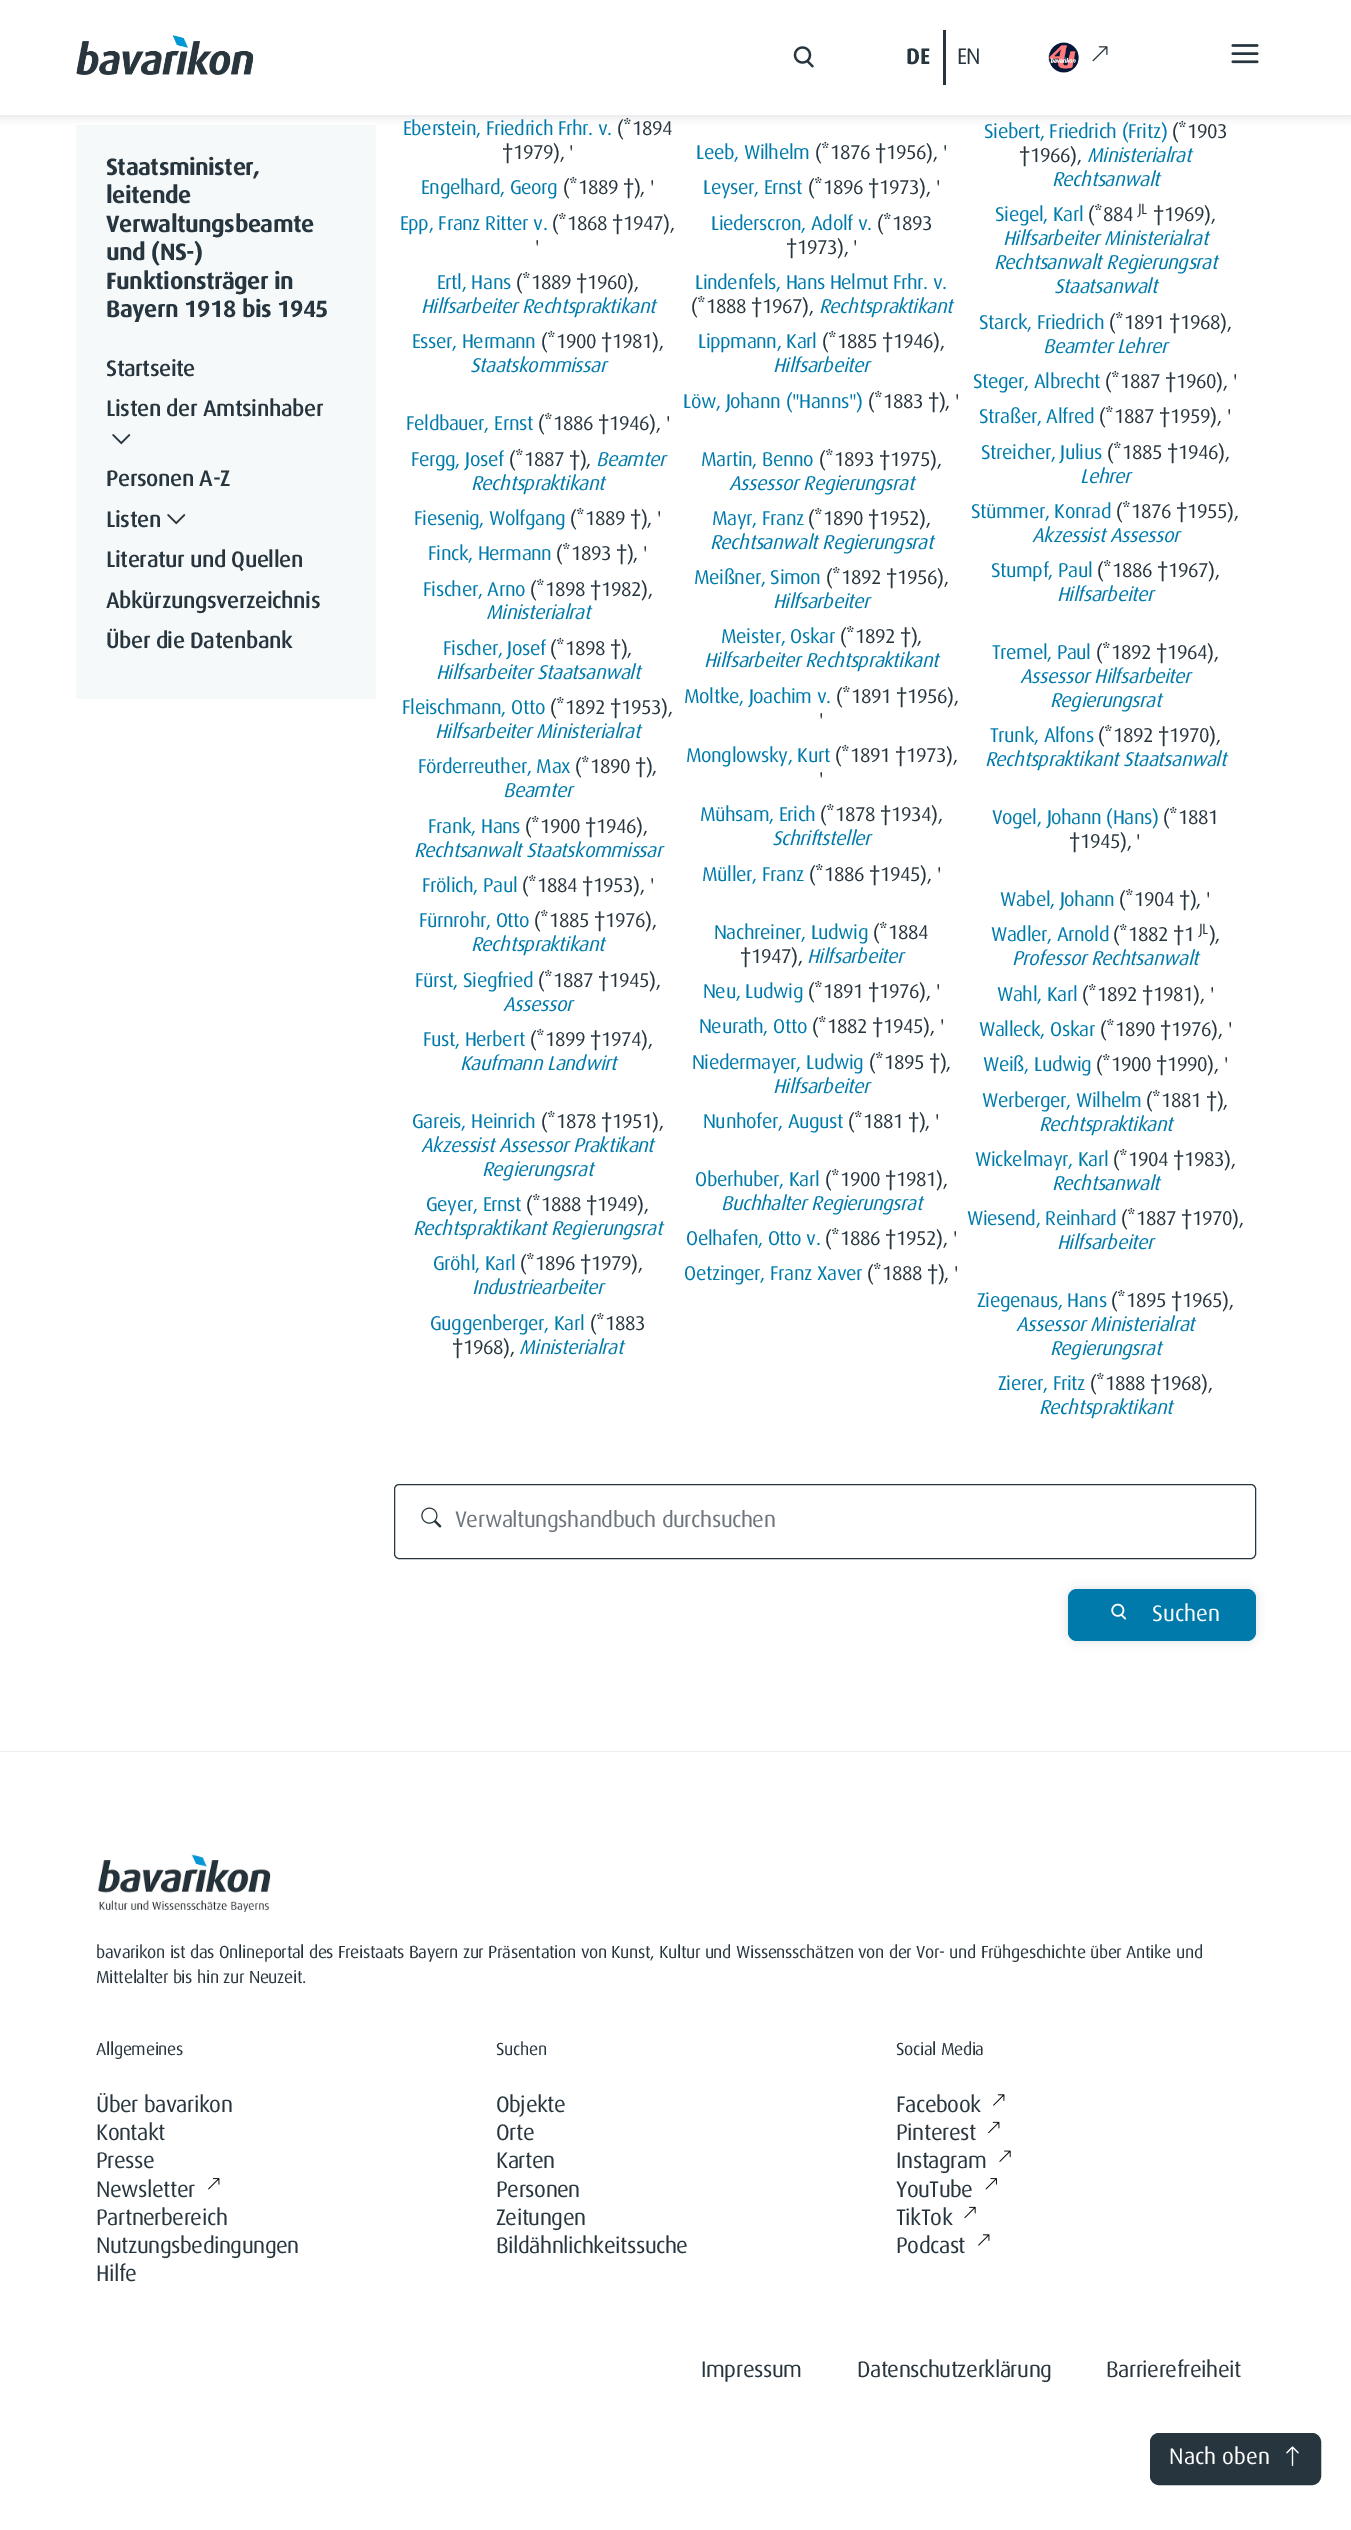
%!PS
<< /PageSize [1351 2530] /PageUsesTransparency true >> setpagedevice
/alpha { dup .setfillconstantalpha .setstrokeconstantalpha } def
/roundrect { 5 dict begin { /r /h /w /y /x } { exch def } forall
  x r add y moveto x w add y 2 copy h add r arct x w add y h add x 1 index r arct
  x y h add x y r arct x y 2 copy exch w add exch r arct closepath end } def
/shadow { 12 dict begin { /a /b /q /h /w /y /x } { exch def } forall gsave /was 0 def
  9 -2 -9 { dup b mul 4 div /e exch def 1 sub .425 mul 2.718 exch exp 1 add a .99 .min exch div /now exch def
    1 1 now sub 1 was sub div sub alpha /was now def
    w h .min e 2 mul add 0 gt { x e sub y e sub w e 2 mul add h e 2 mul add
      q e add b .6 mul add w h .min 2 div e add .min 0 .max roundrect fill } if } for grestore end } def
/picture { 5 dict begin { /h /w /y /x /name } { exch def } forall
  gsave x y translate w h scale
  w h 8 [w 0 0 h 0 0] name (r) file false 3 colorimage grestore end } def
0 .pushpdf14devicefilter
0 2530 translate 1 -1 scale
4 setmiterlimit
1 setgray
0 0 1351 2530 rectfill
0.965 0.976 0.98 setrgbcolor
76 125 300 574 rectfill
0.153 0.208 0.243 setrgbcolor
0 1 1351 115 0 5 0.17 shadow
1 setgray
0 0 1351 115 rectfill
(img1.rgb) 76 35 178 40 picture
(img2.rgb) 793 46 21 22 picture
/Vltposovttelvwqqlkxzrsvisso-Bold [22.5 0 0 -22.5 0 0] selectfont
0.153 0.208 0.243 setrgbcolor
906 64 moveto -0.45 0 (DE) ashow
943 30 3 55 rectfill
/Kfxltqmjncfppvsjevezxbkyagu-Regular [22.5 0 0 -22.5 0 0] selectfont
957 64 moveto -0.45 0 (EN) ashow
(img3.rgb) 1048 42 31 31 picture
(img4.rgb) 1092 46 16 16 picture
(img5.rgb) 1231 44 28 20 picture
/Vltposovttelvwqqlkxzrsvisso-Bold [23.75 0 0 -23.75 0 0] selectfont
106 175 moveto -0.5 0 (Staatsminister,) ashow
106 203 moveto -0.5 0 (leitende) ashow
106 232 moveto -0.5 0 (Verwaltungsbeamte) ashow
106 260 moveto -0.5 0 (und \(NS-\)) ashow
106 289 moveto -0.5 0 (Funktionsträger in) ashow
106 317 moveto -0.5 0 (Bayern 1918 bis 1945) ashow
/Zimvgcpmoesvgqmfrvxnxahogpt-Medium [22.5 0 0 -22.5 0 0] selectfont
106 376 moveto -0.45 0 (Startseite) ashow
106 416 moveto -0.45 0 (Listen der Amtsinhaber) ashow
(img6.rgb) 112 434 19 11 picture
106 486 moveto -0.45 0 (Personen A-Z) ashow
106 527 moveto -0.45 0 (Listen) ashow
(img6.rgb) 167 514 19 11 picture
106 567 moveto -0.45 0 (Literatur und Quellen) ashow
106 608 moveto -0.45 0 (Abkürzungsverzeichnis) ashow
106 648 moveto -0.45 0 (Über die Datenbank) ashow
/Kfxltqmjncfppvsjevezxbkyagu-Regular [20 0 0 -20 0 0] selectfont
0 0.478 0.671 setrgbcolor
403 135 moveto -0.45 0 (Eberstein, Friedrich Frhr. v.) ashow
0.153 0.208 0.243 setrgbcolor
617 135 moveto -0.45 0 (\(*1894) ashow
502 159 moveto -0.45 0 (†1979\), ') ashow
0 0.478 0.671 setrgbcolor
421 194 moveto -0.45 0 (Engelhard, Georg) ashow
0.153 0.208 0.243 setrgbcolor
563 194 moveto -0.45 0 (\(*1889 †\), ') ashow
0 0.478 0.671 setrgbcolor
400 230 moveto -0.45 0 (Epp, Franz Ritter v.) ashow
0.153 0.208 0.243 setrgbcolor
552 230 moveto -0.45 0 (\(*1868 †1947\),) ashow
535 254 moveto -0.45 0 (') ashow
0 0.478 0.671 setrgbcolor
437 289 moveto -0.45 0 (Ertl, Hans) ashow
0.153 0.208 0.243 setrgbcolor
516 289 moveto -0.45 0 (\(*1889 †1960\),) ashow
/Kfxltqmjncfppvsjevezxbkyagu-Italic [20 0 0 -20 0 0] selectfont
0 0.478 0.671 setrgbcolor
421 313 moveto -0.45 0 (Hilfsarbeiter Rechtspraktikant) ashow
/Kfxltqmjncfppvsjevezxbkyagu-Regular [20 0 0 -20 0 0] selectfont
412 348 moveto -0.45 0 (Esser, Hermann) ashow
0.153 0.208 0.243 setrgbcolor
541 348 moveto -0.45 0 (\(*1900 †1981\),) ashow
/Kfxltqmjncfppvsjevezxbkyagu-Italic [20 0 0 -20 0 0] selectfont
0 0.478 0.671 setrgbcolor
470 372 moveto -0.45 0 (Staatskommissar) ashow
/Kfxltqmjncfppvsjevezxbkyagu-Regular [20 0 0 -20 0 0] selectfont
406 430 moveto -0.45 0 (Feldbauer, Ernst) ashow
0.153 0.208 0.243 setrgbcolor
538 430 moveto -0.45 0 (\(*1886 †1946\), ') ashow
0 0.478 0.671 setrgbcolor
411 466 moveto -0.45 0 (Fergg, Josef) ashow
0.153 0.208 0.243 setrgbcolor
509 466 moveto -0.45 0 (\(*1887 †\),) ashow
/Kfxltqmjncfppvsjevezxbkyagu-Italic [20 0 0 -20 0 0] selectfont
0 0.478 0.671 setrgbcolor
596 466 moveto -0.45 0 (Beamter) ashow
471 490 moveto -0.45 0 (Rechtspraktikant) ashow
/Kfxltqmjncfppvsjevezxbkyagu-Regular [20 0 0 -20 0 0] selectfont
414 525 moveto -0.45 0 (Fiesenig, Wolfgang) ashow
0.153 0.208 0.243 setrgbcolor
570 525 moveto -0.45 0 (\(*1889 †\), ') ashow
0 0.478 0.671 setrgbcolor
428 560 moveto -0.45 0 (Finck, Hermann) ashow
0.153 0.208 0.243 setrgbcolor
556 560 moveto -0.45 0 (\(*1893 †\), ') ashow
0 0.478 0.671 setrgbcolor
423 596 moveto -0.45 0 (Fischer, Arno) ashow
0.153 0.208 0.243 setrgbcolor
530 596 moveto -0.45 0 (\(*1898 †1982\),) ashow
/Kfxltqmjncfppvsjevezxbkyagu-Italic [20 0 0 -20 0 0] selectfont
0 0.478 0.671 setrgbcolor
486 619 moveto -0.45 0 (Ministerialrat) ashow
/Kfxltqmjncfppvsjevezxbkyagu-Regular [20 0 0 -20 0 0] selectfont
443 655 moveto -0.45 0 (Fischer, Josef) ashow
0.153 0.208 0.243 setrgbcolor
550 655 moveto -0.45 0 (\(*1898 †\),) ashow
/Kfxltqmjncfppvsjevezxbkyagu-Italic [20 0 0 -20 0 0] selectfont
0 0.478 0.671 setrgbcolor
436 679 moveto -0.45 0 (Hilfsarbeiter Staatsanwalt) ashow
/Kfxltqmjncfppvsjevezxbkyagu-Regular [20 0 0 -20 0 0] selectfont
402 714 moveto -0.45 0 (Fleischmann, Otto) ashow
0.153 0.208 0.243 setrgbcolor
550 714 moveto -0.45 0 (\(*1892 †1953\),) ashow
/Kfxltqmjncfppvsjevezxbkyagu-Italic [20 0 0 -20 0 0] selectfont
0 0.478 0.671 setrgbcolor
435 738 moveto -0.45 0 (Hilfsarbeiter Ministerialrat) ashow
/Kfxltqmjncfppvsjevezxbkyagu-Regular [20 0 0 -20 0 0] selectfont
418 773 moveto -0.45 0 (Förderreuther, Max) ashow
0.153 0.208 0.243 setrgbcolor
575 773 moveto -0.45 0 (\(*1890 †\),) ashow
/Kfxltqmjncfppvsjevezxbkyagu-Italic [20 0 0 -20 0 0] selectfont
0 0.478 0.671 setrgbcolor
503 797 moveto -0.45 0 (Beamter) ashow
/Kfxltqmjncfppvsjevezxbkyagu-Regular [20 0 0 -20 0 0] selectfont
428 833 moveto -0.45 0 (Frank, Hans) ashow
0.153 0.208 0.243 setrgbcolor
525 833 moveto -0.45 0 (\(*1900 †1946\),) ashow
/Kfxltqmjncfppvsjevezxbkyagu-Italic [20 0 0 -20 0 0] selectfont
0 0.478 0.671 setrgbcolor
414 857 moveto -0.45 0 (Rechtsanwalt Staatskommissar) ashow
/Kfxltqmjncfppvsjevezxbkyagu-Regular [20 0 0 -20 0 0] selectfont
422 892 moveto -0.45 0 (Frölich, Paul) ashow
0.153 0.208 0.243 setrgbcolor
522 892 moveto -0.45 0 (\(*1884 †1953\), ') ashow
0 0.478 0.671 setrgbcolor
419 927 moveto -0.45 0 (Fürnrohr, Otto) ashow
0.153 0.208 0.243 setrgbcolor
534 927 moveto -0.45 0 (\(*1885 †1976\),) ashow
/Kfxltqmjncfppvsjevezxbkyagu-Italic [20 0 0 -20 0 0] selectfont
0 0.478 0.671 setrgbcolor
471 951 moveto -0.45 0 (Rechtspraktikant) ashow
/Kfxltqmjncfppvsjevezxbkyagu-Regular [20 0 0 -20 0 0] selectfont
415 987 moveto -0.45 0 (Fürst, Siegfried) ashow
0.153 0.208 0.243 setrgbcolor
538 987 moveto -0.45 0 (\(*1887 †1945\),) ashow
/Kfxltqmjncfppvsjevezxbkyagu-Italic [20 0 0 -20 0 0] selectfont
0 0.478 0.671 setrgbcolor
503 1011 moveto -0.45 0 (Assessor) ashow
/Kfxltqmjncfppvsjevezxbkyagu-Regular [20 0 0 -20 0 0] selectfont
423 1046 moveto -0.45 0 (Fust, Herbert) ashow
0.153 0.208 0.243 setrgbcolor
530 1046 moveto -0.45 0 (\(*1899 †1974\),) ashow
/Kfxltqmjncfppvsjevezxbkyagu-Italic [20 0 0 -20 0 0] selectfont
0 0.478 0.671 setrgbcolor
460 1070 moveto -0.45 0 (Kaufmann Landwirt) ashow
/Kfxltqmjncfppvsjevezxbkyagu-Regular [20 0 0 -20 0 0] selectfont
412 1128 moveto -0.45 0 (Gareis, Heinrich) ashow
0.153 0.208 0.243 setrgbcolor
541 1128 moveto -0.45 0 (\(*1878 †1951\),) ashow
/Kfxltqmjncfppvsjevezxbkyagu-Italic [20 0 0 -20 0 0] selectfont
0 0.478 0.671 setrgbcolor
421 1152 moveto -0.45 0 (Akzessist Assessor Praktikant) ashow
482 1176 moveto -0.45 0 (Regierungsrat) ashow
/Kfxltqmjncfppvsjevezxbkyagu-Regular [20 0 0 -20 0 0] selectfont
426 1211 moveto -0.45 0 (Geyer, Ernst) ashow
0.153 0.208 0.243 setrgbcolor
526 1211 moveto -0.45 0 (\(*1888 †1949\),) ashow
/Kfxltqmjncfppvsjevezxbkyagu-Italic [20 0 0 -20 0 0] selectfont
0 0.478 0.671 setrgbcolor
413 1235 moveto -0.45 0 (Rechtspraktikant Regierungsrat) ashow
/Kfxltqmjncfppvsjevezxbkyagu-Regular [20 0 0 -20 0 0] selectfont
433 1270 moveto -0.45 0 (Gröhl, Karl) ashow
0.153 0.208 0.243 setrgbcolor
520 1270 moveto -0.45 0 (\(*1896 †1979\),) ashow
/Kfxltqmjncfppvsjevezxbkyagu-Italic [20 0 0 -20 0 0] selectfont
0 0.478 0.671 setrgbcolor
472 1294 moveto -0.45 0 (Industriearbeiter) ashow
/Kfxltqmjncfppvsjevezxbkyagu-Regular [20 0 0 -20 0 0] selectfont
430 1330 moveto -0.45 0 (Guggenberger, Karl) ashow
0.153 0.208 0.243 setrgbcolor
590 1330 moveto -0.45 0 (\(*1883) ashow
452 1354 moveto -0.45 0 (†1968\),) ashow
/Kfxltqmjncfppvsjevezxbkyagu-Italic [20 0 0 -20 0 0] selectfont
0 0.478 0.671 setrgbcolor
519 1354 moveto -0.45 0 (Ministerialrat) ashow
/Kfxltqmjncfppvsjevezxbkyagu-Regular [20 0 0 -20 0 0] selectfont
696 159 moveto -0.45 0 (Leeb, Wilhelm) ashow
0.153 0.208 0.243 setrgbcolor
815 159 moveto -0.45 0 (\(*1876 †1956\), ') ashow
0 0.478 0.671 setrgbcolor
703 194 moveto -0.45 0 (Leyser, Ernst) ashow
0.153 0.208 0.243 setrgbcolor
808 194 moveto -0.45 0 (\(*1896 †1973\), ') ashow
0 0.478 0.671 setrgbcolor
711 230 moveto -0.45 0 (Liederscron, Adolf v.) ashow
0.153 0.208 0.243 setrgbcolor
877 230 moveto -0.45 0 (\(*1893) ashow
786 254 moveto -0.45 0 (†1973\), ') ashow
0 0.478 0.671 setrgbcolor
695 289 moveto -0.45 0 (Lindenfels, Hans Helmut Frhr. v.) ashow
0.153 0.208 0.243 setrgbcolor
691 313 moveto -0.45 0 (\(*1888 †1967\),) ashow
/Kfxltqmjncfppvsjevezxbkyagu-Italic [20 0 0 -20 0 0] selectfont
0 0.478 0.671 setrgbcolor
819 313 moveto -0.45 0 (Rechtspraktikant) ashow
/Kfxltqmjncfppvsjevezxbkyagu-Regular [20 0 0 -20 0 0] selectfont
698 348 moveto -0.45 0 (Lippmann, Karl) ashow
0.153 0.208 0.243 setrgbcolor
822 348 moveto -0.45 0 (\(*1885 †1946\),) ashow
/Kfxltqmjncfppvsjevezxbkyagu-Italic [20 0 0 -20 0 0] selectfont
0 0.478 0.671 setrgbcolor
773 372 moveto -0.45 0 (Hilfsarbeiter) ashow
/Kfxltqmjncfppvsjevezxbkyagu-Regular [20 0 0 -20 0 0] selectfont
683 408 moveto -0.45 0 (Löw, Johann \("Hanns"\)) ashow
0.153 0.208 0.243 setrgbcolor
868 408 moveto -0.45 0 (\(*1883 †\), ') ashow
0 0.478 0.671 setrgbcolor
701 466 moveto -0.45 0 (Martin, Benno) ashow
0.153 0.208 0.243 setrgbcolor
819 466 moveto -0.45 0 (\(*1893 †1975\),) ashow
/Kfxltqmjncfppvsjevezxbkyagu-Italic [20 0 0 -20 0 0] selectfont
0 0.478 0.671 setrgbcolor
729 490 moveto -0.45 0 (Assessor Regierungsrat) ashow
/Kfxltqmjncfppvsjevezxbkyagu-Regular [20 0 0 -20 0 0] selectfont
712 525 moveto -0.45 0 (Mayr, Franz) ashow
0.153 0.208 0.243 setrgbcolor
808 525 moveto -0.45 0 (\(*1890 †1952\),) ashow
/Kfxltqmjncfppvsjevezxbkyagu-Italic [20 0 0 -20 0 0] selectfont
0 0.478 0.671 setrgbcolor
710 549 moveto -0.45 0 (Rechtsanwalt Regierungsrat) ashow
/Kfxltqmjncfppvsjevezxbkyagu-Regular [20 0 0 -20 0 0] selectfont
694 584 moveto -0.45 0 (Meißner, Simon) ashow
0.153 0.208 0.243 setrgbcolor
826 584 moveto -0.45 0 (\(*1892 †1956\),) ashow
/Kfxltqmjncfppvsjevezxbkyagu-Italic [20 0 0 -20 0 0] selectfont
0 0.478 0.671 setrgbcolor
773 608 moveto -0.45 0 (Hilfsarbeiter) ashow
/Kfxltqmjncfppvsjevezxbkyagu-Regular [20 0 0 -20 0 0] selectfont
721 643 moveto -0.45 0 (Meister, Oskar) ashow
0.153 0.208 0.243 setrgbcolor
840 643 moveto -0.45 0 (\(*1892 †\),) ashow
/Kfxltqmjncfppvsjevezxbkyagu-Italic [20 0 0 -20 0 0] selectfont
0 0.478 0.671 setrgbcolor
704 667 moveto -0.45 0 (Hilfsarbeiter Rechtspraktikant) ashow
/Kfxltqmjncfppvsjevezxbkyagu-Regular [20 0 0 -20 0 0] selectfont
684 703 moveto -0.45 0 (Moltke, Joachim v.) ashow
0.153 0.208 0.243 setrgbcolor
836 703 moveto -0.45 0 (\(*1891 †1956\),) ashow
819 727 moveto -0.45 0 (') ashow
0 0.478 0.671 setrgbcolor
686 762 moveto -0.45 0 (Monglowsky, Kurt) ashow
0.153 0.208 0.243 setrgbcolor
835 762 moveto -0.45 0 (\(*1891 †1973\),) ashow
819 786 moveto -0.45 0 (') ashow
0 0.478 0.671 setrgbcolor
700 821 moveto -0.45 0 (Mühsam, Erich) ashow
0.153 0.208 0.243 setrgbcolor
820 821 moveto -0.45 0 (\(*1878 †1934\),) ashow
/Kfxltqmjncfppvsjevezxbkyagu-Italic [20 0 0 -20 0 0] selectfont
0 0.478 0.671 setrgbcolor
772 845 moveto -0.45 0 (Schriftsteller) ashow
/Kfxltqmjncfppvsjevezxbkyagu-Regular [20 0 0 -20 0 0] selectfont
702 881 moveto -0.45 0 (Müller, Franz) ashow
0.153 0.208 0.243 setrgbcolor
809 881 moveto -0.45 0 (\(*1886 †1945\), ') ashow
0 0.478 0.671 setrgbcolor
714 939 moveto -0.45 0 (Nachreiner, Ludwig) ashow
0.153 0.208 0.243 setrgbcolor
873 939 moveto -0.45 0 (\(*1884) ashow
740 963 moveto -0.45 0 (†1947\),) ashow
/Kfxltqmjncfppvsjevezxbkyagu-Italic [20 0 0 -20 0 0] selectfont
0 0.478 0.671 setrgbcolor
807 963 moveto -0.45 0 (Hilfsarbeiter) ashow
/Kfxltqmjncfppvsjevezxbkyagu-Regular [20 0 0 -20 0 0] selectfont
703 998 moveto -0.45 0 (Neu, Ludwig) ashow
0.153 0.208 0.243 setrgbcolor
808 998 moveto -0.45 0 (\(*1891 †1976\), ') ashow
0 0.478 0.671 setrgbcolor
699 1033 moveto -0.45 0 (Neurath, Otto) ashow
0.153 0.208 0.243 setrgbcolor
812 1033 moveto -0.45 0 (\(*1882 †1945\), ') ashow
0 0.478 0.671 setrgbcolor
692 1069 moveto -0.45 0 (Niedermayer, Ludwig) ashow
0.153 0.208 0.243 setrgbcolor
869 1069 moveto -0.45 0 (\(*1895 †\),) ashow
/Kfxltqmjncfppvsjevezxbkyagu-Italic [20 0 0 -20 0 0] selectfont
0 0.478 0.671 setrgbcolor
773 1093 moveto -0.45 0 (Hilfsarbeiter) ashow
/Kfxltqmjncfppvsjevezxbkyagu-Regular [20 0 0 -20 0 0] selectfont
703 1128 moveto -0.45 0 (Nunhofer, August) ashow
0.153 0.208 0.243 setrgbcolor
848 1128 moveto -0.45 0 (\(*1881 †\), ') ashow
0 0.478 0.671 setrgbcolor
695 1186 moveto -0.45 0 (Oberhuber, Karl) ashow
0.153 0.208 0.243 setrgbcolor
825 1186 moveto -0.45 0 (\(*1900 †1981\),) ashow
/Kfxltqmjncfppvsjevezxbkyagu-Italic [20 0 0 -20 0 0] selectfont
0 0.478 0.671 setrgbcolor
721 1210 moveto -0.45 0 (Buchhalter Regierungsrat) ashow
/Kfxltqmjncfppvsjevezxbkyagu-Regular [20 0 0 -20 0 0] selectfont
686 1245 moveto -0.45 0 (Oelhafen, Otto v.) ashow
0.153 0.208 0.243 setrgbcolor
825 1245 moveto -0.45 0 (\(*1886 †1952\), ') ashow
0 0.478 0.671 setrgbcolor
684 1280 moveto -0.45 0 (Oetzinger, Franz Xaver) ashow
0.153 0.208 0.243 setrgbcolor
867 1280 moveto -0.45 0 (\(*1888 †\), ') ashow
0 0.478 0.671 setrgbcolor
984 138 moveto -0.45 0 (Siebert, Friedrich \(Fritz\)) ashow
0.153 0.208 0.243 setrgbcolor
1172 138 moveto -0.45 0 (\(*1903) ashow
1019 162 moveto -0.45 0 (†1966\),) ashow
/Kfxltqmjncfppvsjevezxbkyagu-Italic [20 0 0 -20 0 0] selectfont
0 0.478 0.671 setrgbcolor
1087 162 moveto -0.45 0 (Ministerialrat) ashow
1052 186 moveto -0.45 0 (Rechtsanwalt) ashow
/Kfxltqmjncfppvsjevezxbkyagu-Regular [20 0 0 -20 0 0] selectfont
995 221 moveto -0.45 0 (Siegel, Karl) ashow
0.153 0.208 0.243 setrgbcolor
1088 221 moveto -0.45 0 (\(*884) ashow
/Kfxltqmjncfppvsjevezxbkyagu-Regular [15 0 0 -15 0 0] selectfont
1138 214 moveto -0.45 0 (JL) ashow
/Kfxltqmjncfppvsjevezxbkyagu-Regular [20 0 0 -20 0 0] selectfont
1153 221 moveto -0.45 0 (†1969\),) ashow
/Kfxltqmjncfppvsjevezxbkyagu-Italic [20 0 0 -20 0 0] selectfont
0 0.478 0.671 setrgbcolor
1003 245 moveto -0.45 0 (Hilfsarbeiter Ministerialrat) ashow
994 269 moveto -0.45 0 (Rechtsanwalt Regierungsrat) ashow
1054 293 moveto -0.45 0 (Staatsanwalt) ashow
/Kfxltqmjncfppvsjevezxbkyagu-Regular [20 0 0 -20 0 0] selectfont
979 329 moveto -0.45 0 (Starck, Friedrich) ashow
0.153 0.208 0.243 setrgbcolor
1109 329 moveto -0.45 0 (\(*1891 †1968\),) ashow
/Kfxltqmjncfppvsjevezxbkyagu-Italic [20 0 0 -20 0 0] selectfont
0 0.478 0.671 setrgbcolor
1043 353 moveto -0.45 0 (Beamter Lehrer) ashow
/Kfxltqmjncfppvsjevezxbkyagu-Regular [20 0 0 -20 0 0] selectfont
973 388 moveto -0.45 0 (Steger, Albrecht) ashow
0.153 0.208 0.243 setrgbcolor
1105 388 moveto -0.45 0 (\(*1887 †1960\), ') ashow
0 0.478 0.671 setrgbcolor
979 423 moveto -0.45 0 (Straßer, Alfred) ashow
0.153 0.208 0.243 setrgbcolor
1099 423 moveto -0.45 0 (\(*1887 †1959\), ') ashow
0 0.478 0.671 setrgbcolor
981 459 moveto -0.45 0 (Streicher, Julius) ashow
0.153 0.208 0.243 setrgbcolor
1107 459 moveto -0.45 0 (\(*1885 †1946\),) ashow
/Kfxltqmjncfppvsjevezxbkyagu-Italic [20 0 0 -20 0 0] selectfont
0 0.478 0.671 setrgbcolor
1080 483 moveto -0.45 0 (Lehrer) ashow
/Kfxltqmjncfppvsjevezxbkyagu-Regular [20 0 0 -20 0 0] selectfont
971 518 moveto -0.45 0 (Stümmer, Konrad) ashow
0.153 0.208 0.243 setrgbcolor
1116 518 moveto -0.45 0 (\(*1876 †1955\),) ashow
/Kfxltqmjncfppvsjevezxbkyagu-Italic [20 0 0 -20 0 0] selectfont
0 0.478 0.671 setrgbcolor
1032 542 moveto -0.45 0 (Akzessist Assessor) ashow
/Kfxltqmjncfppvsjevezxbkyagu-Regular [20 0 0 -20 0 0] selectfont
991 577 moveto -0.45 0 (Stumpf, Paul) ashow
0.153 0.208 0.243 setrgbcolor
1097 577 moveto -0.45 0 (\(*1886 †1967\),) ashow
/Kfxltqmjncfppvsjevezxbkyagu-Italic [20 0 0 -20 0 0] selectfont
0 0.478 0.671 setrgbcolor
1057 601 moveto -0.45 0 (Hilfsarbeiter) ashow
/Kfxltqmjncfppvsjevezxbkyagu-Regular [20 0 0 -20 0 0] selectfont
992 659 moveto -0.45 0 (Tremel, Paul) ashow
0.153 0.208 0.243 setrgbcolor
1096 659 moveto -0.45 0 (\(*1892 †1964\),) ashow
/Kfxltqmjncfppvsjevezxbkyagu-Italic [20 0 0 -20 0 0] selectfont
0 0.478 0.671 setrgbcolor
1020 683 moveto -0.45 0 (Assessor Hilfsarbeiter) ashow
1050 707 moveto -0.45 0 (Regierungsrat) ashow
/Kfxltqmjncfppvsjevezxbkyagu-Regular [20 0 0 -20 0 0] selectfont
990 742 moveto -0.45 0 (Trunk, Alfons) ashow
0.153 0.208 0.243 setrgbcolor
1098 742 moveto -0.45 0 (\(*1892 †1970\),) ashow
/Kfxltqmjncfppvsjevezxbkyagu-Italic [20 0 0 -20 0 0] selectfont
0 0.478 0.671 setrgbcolor
985 766 moveto -0.45 0 (Rechtspraktikant Staatsanwalt) ashow
/Kfxltqmjncfppvsjevezxbkyagu-Regular [20 0 0 -20 0 0] selectfont
992 824 moveto -0.45 0 (Vogel, Johann \(Hans\)) ashow
0.153 0.208 0.243 setrgbcolor
1163 824 moveto -0.45 0 (\(*1881) ashow
1069 848 moveto -0.45 0 (†1945\), ') ashow
0 0.478 0.671 setrgbcolor
1000 906 moveto -0.45 0 (Wabel, Johann) ashow
0.153 0.208 0.243 setrgbcolor
1119 906 moveto -0.45 0 (\(*1904 †\), ') ashow
0 0.478 0.671 setrgbcolor
991 941 moveto -0.45 0 (Wadler, Arnold) ashow
0.153 0.208 0.243 setrgbcolor
1113 941 moveto -0.45 0 (\(*1882 †1) ashow
/Kfxltqmjncfppvsjevezxbkyagu-Regular [15 0 0 -15 0 0] selectfont
1199 934 moveto -0.45 0 (JL) ashow
/Kfxltqmjncfppvsjevezxbkyagu-Regular [20 0 0 -20 0 0] selectfont
1209 941 moveto -0.45 0 (\),) ashow
/Kfxltqmjncfppvsjevezxbkyagu-Italic [20 0 0 -20 0 0] selectfont
0 0.478 0.671 setrgbcolor
1012 965 moveto -0.45 0 (Professor Rechtsanwalt) ashow
/Kfxltqmjncfppvsjevezxbkyagu-Regular [20 0 0 -20 0 0] selectfont
997 1001 moveto -0.45 0 (Wahl, Karl) ashow
0.153 0.208 0.243 setrgbcolor
1082 1001 moveto -0.45 0 (\(*1892 †1981\), ') ashow
0 0.478 0.671 setrgbcolor
979 1036 moveto -0.45 0 (Walleck, Oskar) ashow
0.153 0.208 0.243 setrgbcolor
1100 1036 moveto -0.45 0 (\(*1890 †1976\), ') ashow
0 0.478 0.671 setrgbcolor
983 1071 moveto -0.45 0 (Weiß, Ludwig) ashow
0.153 0.208 0.243 setrgbcolor
1096 1071 moveto -0.45 0 (\(*1900 †1990\), ') ashow
0 0.478 0.671 setrgbcolor
982 1107 moveto -0.45 0 (Werberger, Wilhelm) ashow
0.153 0.208 0.243 setrgbcolor
1146 1107 moveto -0.45 0 (\(*1881 †\),) ashow
/Kfxltqmjncfppvsjevezxbkyagu-Italic [20 0 0 -20 0 0] selectfont
0 0.478 0.671 setrgbcolor
1039 1131 moveto -0.45 0 (Rechtspraktikant) ashow
/Kfxltqmjncfppvsjevezxbkyagu-Regular [20 0 0 -20 0 0] selectfont
975 1166 moveto -0.45 0 (Wickelmayr, Karl) ashow
0.153 0.208 0.243 setrgbcolor
1113 1166 moveto -0.45 0 (\(*1904 †1983\),) ashow
/Kfxltqmjncfppvsjevezxbkyagu-Italic [20 0 0 -20 0 0] selectfont
0 0.478 0.671 setrgbcolor
1052 1190 moveto -0.45 0 (Rechtsanwalt) ashow
/Kfxltqmjncfppvsjevezxbkyagu-Regular [20 0 0 -20 0 0] selectfont
967 1225 moveto -0.45 0 (Wiesend, Reinhard) ashow
0.153 0.208 0.243 setrgbcolor
1121 1225 moveto -0.45 0 (\(*1887 †1970\),) ashow
/Kfxltqmjncfppvsjevezxbkyagu-Italic [20 0 0 -20 0 0] selectfont
0 0.478 0.671 setrgbcolor
1057 1249 moveto -0.45 0 (Hilfsarbeiter) ashow
/Kfxltqmjncfppvsjevezxbkyagu-Regular [20 0 0 -20 0 0] selectfont
977 1307 moveto -0.45 0 (Ziegenaus, Hans) ashow
0.153 0.208 0.243 setrgbcolor
1111 1307 moveto -0.45 0 (\(*1895 †1965\),) ashow
/Kfxltqmjncfppvsjevezxbkyagu-Italic [20 0 0 -20 0 0] selectfont
0 0.478 0.671 setrgbcolor
1016 1331 moveto -0.45 0 (Assessor Ministerialrat) ashow
1050 1355 moveto -0.45 0 (Regierungsrat) ashow
/Kfxltqmjncfppvsjevezxbkyagu-Regular [20 0 0 -20 0 0] selectfont
998 1390 moveto -0.45 0 (Zierer, Fritz) ashow
0.153 0.208 0.243 setrgbcolor
1090 1390 moveto -0.45 0 (\(*1888 †1968\),) ashow
/Kfxltqmjncfppvsjevezxbkyagu-Italic [20 0 0 -20 0 0] selectfont
0 0.478 0.671 setrgbcolor
1039 1414 moveto -0.45 0 (Rechtspraktikant) ashow
0.153 0.208 0.243 setrgbcolor
394.5 1484.5 861 74 4.5 roundrect stroke
(img7.rgb) 421 1507 21 21 picture
gsave
455 1510 770 23 rectclip
/Kfxltqmjncfppvsjevezxbkyagu-Regular [22.5 0 0 -22.5 0 0] selectfont
0.424 0.459 0.49 setrgbcolor
455 1527 moveto -0.45 0 (Verwaltungshandbuch durchsuchen) ashow
grestore
1068 1589 188 52 9 5 0.15 shadow
0 0.478 0.671 setrgbcolor
1068 1589 188 52 9 roundrect fill
(img8.rgb) 1111 1603 16 17 picture
/Kfxltqmjncfppvsjevezxbkyagu-Regular [22.5 0 0 -22.5 0 0] selectfont
1 setgray
1152 1621 moveto (Suchen) show
0.929 0.933 0.937 setrgbcolor
0 1751 1351 1 rectfill
(img9.rgb) 98 1854 173 59 picture
/Kfxltqmjncfppvsjevezxbkyagu-Regular [17.5 0 0 -17.5 0 0] selectfont
0.153 0.208 0.243 setrgbcolor
96 1958 moveto -0.35 0 (bavarikon ist das Onlineportal des Freistaats Bayern zur Präsentation von Kunst, Kultur und Wissensschätzen von der Vor- und Frühgeschichte über Antike und) ashow
96 1983 moveto -0.35 0 (Mittelalter bis hin zur Neuzeit.) ashow
96 2055 moveto -0.35 0 (Allgemeines) ashow
/Kfxltqmjncfppvsjevezxbkyagu-Regular [22.5 0 0 -22.5 0 0] selectfont
96 2112 moveto -0.5 0 (Über bavarikon) ashow
96 2140 moveto -0.5 0 (Kontakt) ashow
96 2168 moveto -0.5 0 (Presse) ashow
96 2197 moveto -0.5 0 (Newsletter) ashow
(img10.rgb) 208 2178 12 12 picture
96 2225 moveto -0.5 0 (Partnerbereich) ashow
96 2253 moveto -0.5 0 (Nutzungsbedingungen) ashow
96 2281 moveto -0.5 0 (Hilfe) ashow
/Kfxltqmjncfppvsjevezxbkyagu-Regular [17.5 0 0 -17.5 0 0] selectfont
496 2055 moveto -0.35 0 (Suchen) ashow
/Kfxltqmjncfppvsjevezxbkyagu-Regular [22.5 0 0 -22.5 0 0] selectfont
496 2112 moveto -0.5 0 (Objekte) ashow
496 2140 moveto -0.5 0 (Orte) ashow
496 2168 moveto -0.5 0 (Karten) ashow
496 2197 moveto -0.5 0 (Personen) ashow
496 2225 moveto -0.5 0 (Zeitungen) ashow
496 2253 moveto -0.5 0 (Bildähnlichkeitssuche) ashow
/Kfxltqmjncfppvsjevezxbkyagu-Regular [17.5 0 0 -17.5 0 0] selectfont
896 2055 moveto -0.35 0 (Social Media) ashow
/Kfxltqmjncfppvsjevezxbkyagu-Regular [22.5 0 0 -22.5 0 0] selectfont
896 2112 moveto -0.5 0 (Facebook) ashow
(img11.rgb) 993 2094 12 12 picture
896 2140 moveto -0.5 0 (Pinterest) ashow
(img12.rgb) 988 2121 12 13 picture
896 2168 moveto -0.5 0 (Instagram) ashow
(img13.rgb) 999 2150 12 12 picture
896 2197 moveto -0.5 0 (YouTube) ashow
(img14.rgb) 985 2178 12 12 picture
896 2225 moveto -0.5 0 (TikTok) ashow
(img15.rgb) 964 2206 12 13 picture
896 2253 moveto -0.5 0 (Podcast) ashow
(img11.rgb) 978 2234 12 12 picture
701 2377 moveto -0.5 0 (Impressum) ashow
857 2377 moveto -0.5 0 (Datenschutzerklärung) ashow
1106 2377 moveto -0.5 0 (Barrierefreiheit) ashow
1150.5 2433.5 170 51 8.5 roundrect gsave fill grestore
stroke
1 setgray
1169 2464 moveto (Nach oben) show
(img16.rgb) 1286 2446 13 20 picture
.poppdf14devicefilter showpage
